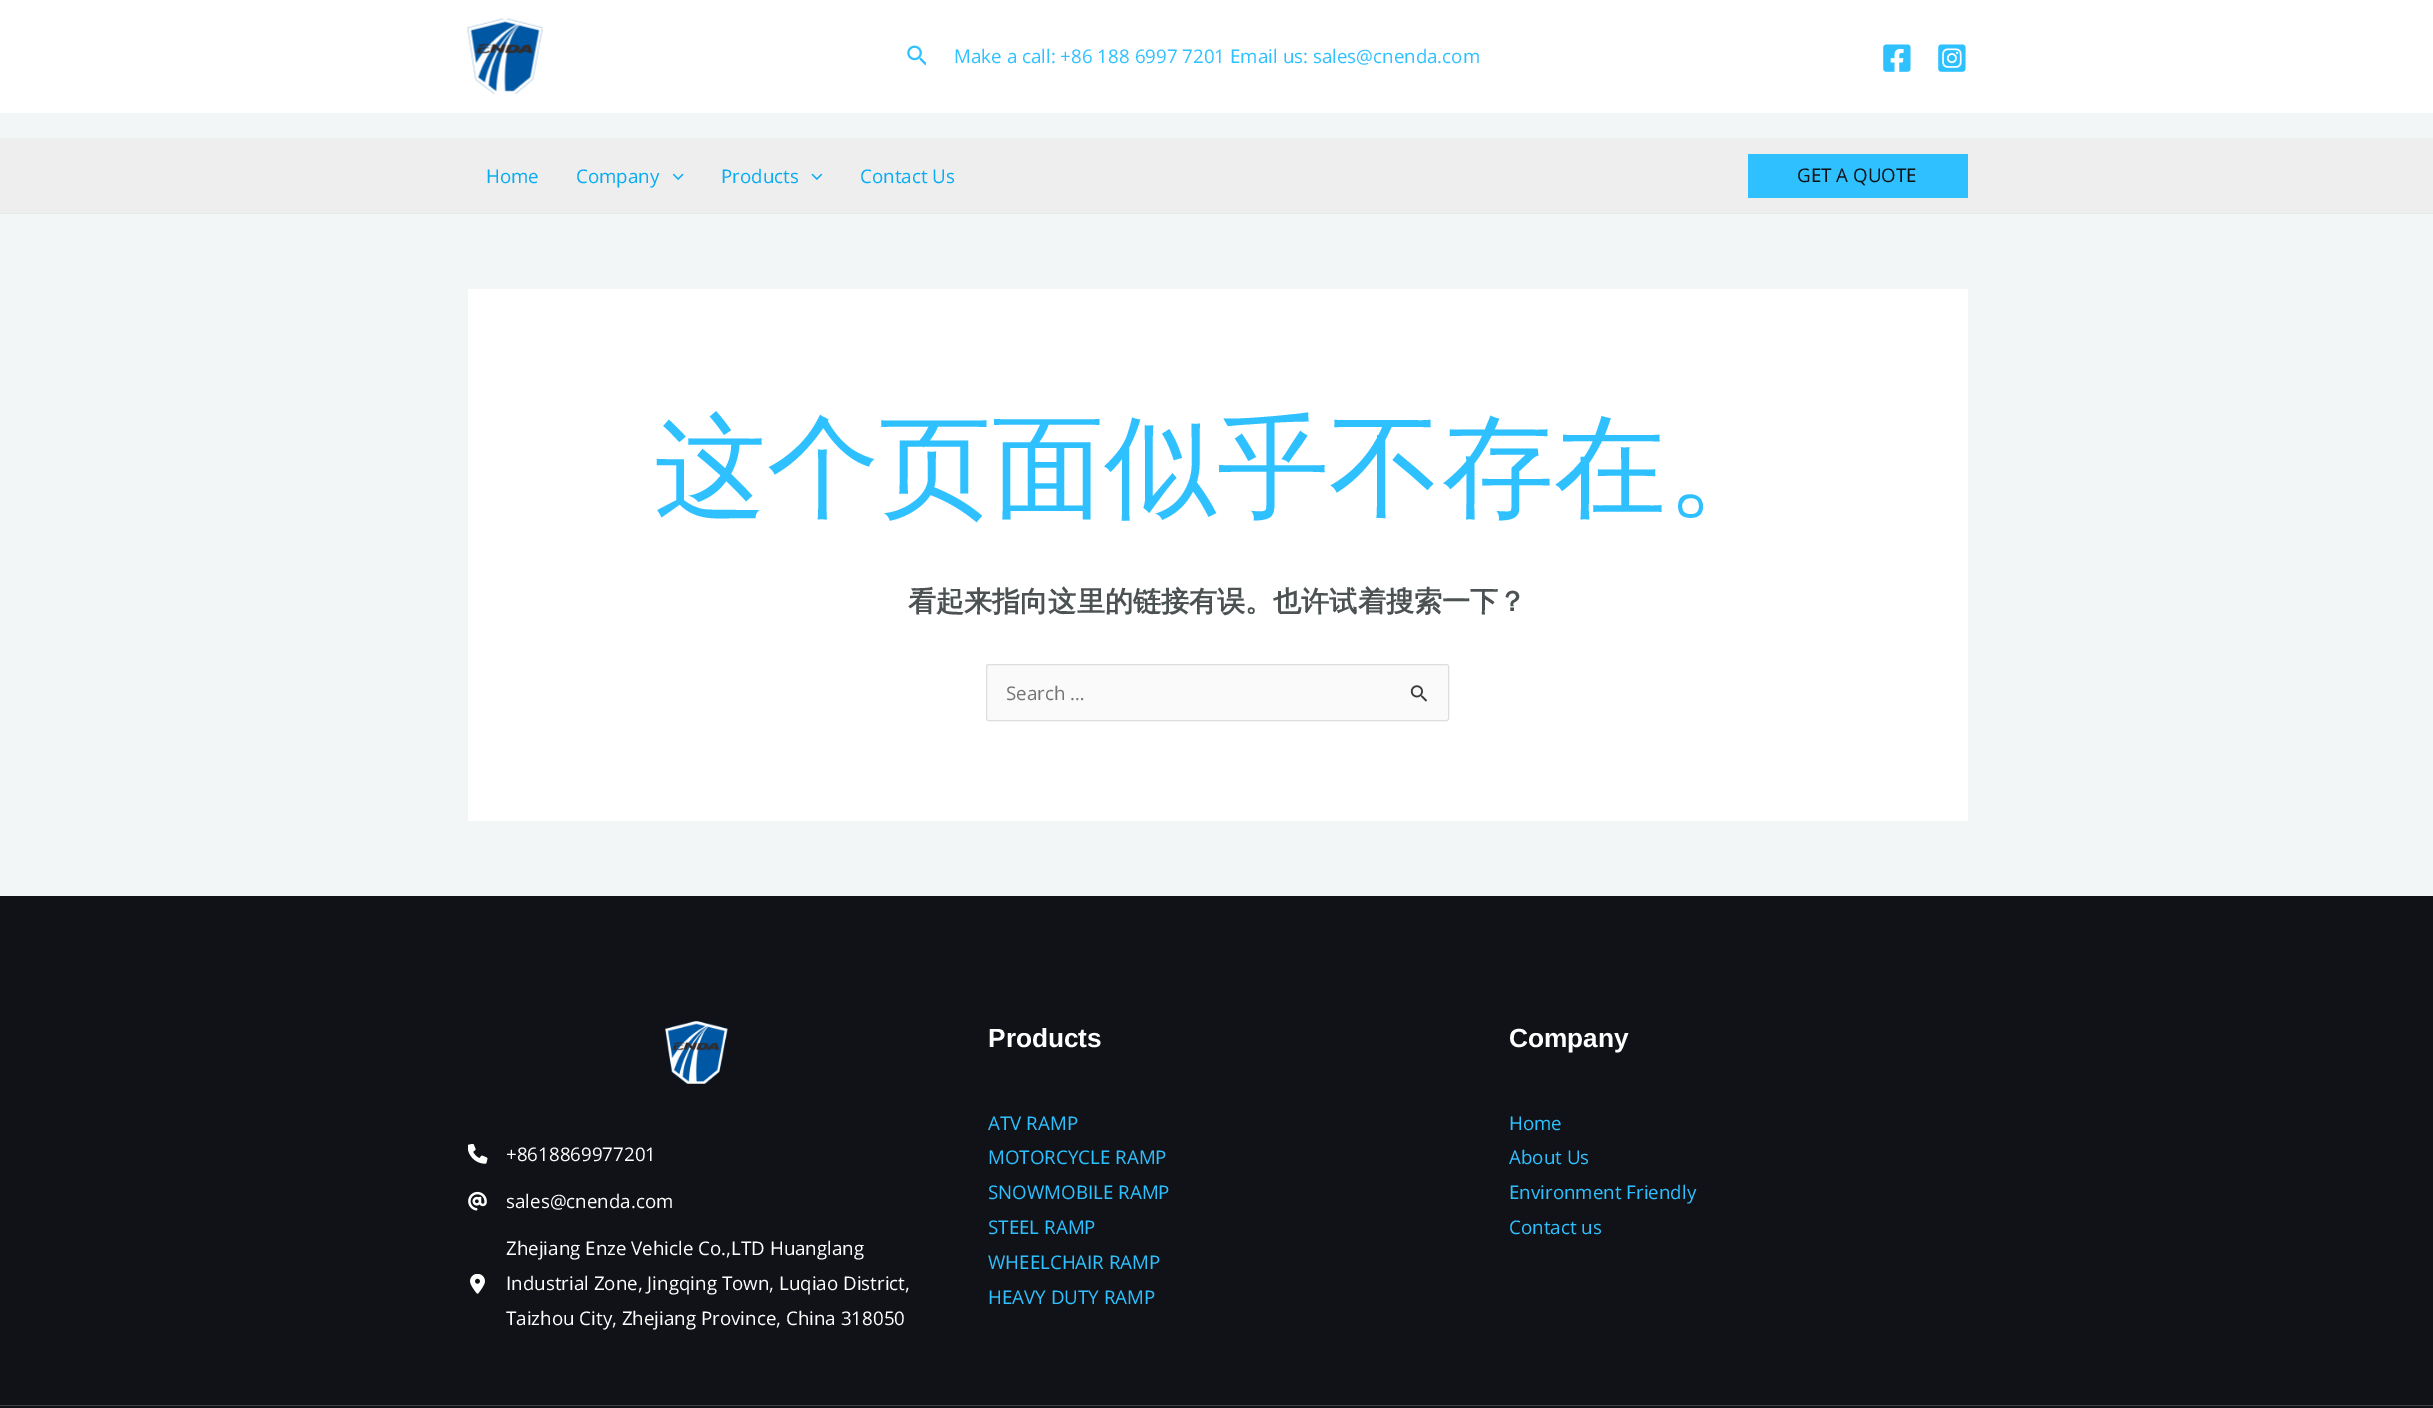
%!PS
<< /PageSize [2433 1408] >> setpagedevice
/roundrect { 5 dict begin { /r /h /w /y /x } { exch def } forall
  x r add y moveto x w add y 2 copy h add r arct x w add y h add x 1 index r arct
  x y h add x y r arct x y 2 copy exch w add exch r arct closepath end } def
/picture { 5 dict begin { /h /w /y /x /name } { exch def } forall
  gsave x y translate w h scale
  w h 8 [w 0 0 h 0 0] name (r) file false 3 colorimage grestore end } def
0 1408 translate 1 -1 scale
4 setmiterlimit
0.953 0.965 0.965 setrgbcolor
0 0 2433 1408 rectfill
1 setgray
0 0 2433 113 rectfill
(img1.rgb) 467 18 76 76 picture
(img2.rgb) 907 45 19 21 picture
/OpenSans-Regular [18.75 0 0 -18.75 0 0] selectfont
0.184 0.757 1 setrgbcolor
954 63 moveto (Make a call: +86 188 6997 7201 Email us: sales@cnenda.com) show
(img3.rgb) 1883 44 28 28 picture
(img4.rgb) 1938 44 28 28 picture
0.933 setgray
0 138 2433 75 rectfill
0.918 setgray
0 213 2433 1 rectfill
0.031 0.675 0.949 setrgbcolor
486 183 moveto (Home) show
576 183 moveto (Company) show
(img5.rgb) 673 173 11 7 picture
721 183 moveto (Products) show
(img6.rgb) 811 173 12 7 picture
860 183 moveto (Contact Us) show
0.184 0.757 1 setrgbcolor
1748 154 220 44 rectfill
0.063 0.071 0.094 setrgbcolor
1797 182 moveto (GET A QUOTE) show
1 setgray
468 289 1500 532 rectfill
/WenQuanYiZenHei-Medium [112.5 0 0 -112.5 0 0] selectfont
0.184 0.757 1 setrgbcolor
654 506 moveto (这个页面似乎不存在。) show
/WenQuanYiZenHei-Bold [28.1 0 0 -28.1 0 0] selectfont
0.298 0.322 0.325 setrgbcolor
908 611 moveto (看起来指向这里的链接有误。也许试着搜索一下？) show
0.98 setgray
986.5 664.5 462 56 2 roundrect gsave fill grestore
0.867 setgray
stroke
/OpenSans-Regular [18.75 0 0 -18.75 0 0] selectfont
0.459 setgray
1006 700 moveto (Search …) show
(img7.rgb) 1410 685 18 17 picture
0.063 0.071 0.094 setrgbcolor
0 896 2433 512 rectfill
(img8.rgb) 665 1021 63 63 picture
(img9.rgb) 468 1144 20 20 picture
1 setgray
506 1161 moveto (+8618869977201) show
(img10.rgb) 468 1191 19 20 picture
506 1208 moveto (sales@cnenda.com) show
(img11.rgb) 470 1274 15 20 picture
506 1255 moveto (Zhejiang Enze Vehicle Co.,LTD Huanglang) show
506 1290 moveto (Industrial Zone, Jingqing Town, Luqiao District,) show
506 1325 moveto (Taizhou City, Zhejiang Province, China 318050) show
/LiberationSans-Bold [26.25 0 0 -26.25 0 0] selectfont
988 1047 moveto (Products) show
/OpenSans-Regular [18.75 0 0 -18.75 0 0] selectfont
0.184 0.757 1 setrgbcolor
988 1130 moveto (ATV RAMP) show
988 1164 moveto (MOTORCYCLE RAMP) show
988 1199 moveto (SNOWMOBILE RAMP) show
988 1234 moveto (STEEL RAMP) show
988 1269 moveto (WHEELCHAIR RAMP) show
988 1304 moveto (HEAVY DUTY RAMP) show
/LiberationSans-Bold [26.25 0 0 -26.25 0 0] selectfont
1 setgray
1509 1047 moveto (Company) show
/OpenSans-Regular [18.75 0 0 -18.75 0 0] selectfont
0.184 0.757 1 setrgbcolor
1509 1130 moveto (Home) show
1509 1164 moveto (About Us) show
1509 1199 moveto (Environment Friendly) show
1509 1234 moveto (Contact us) show
0.251 0.255 0.275 setrgbcolor
0 1405 2433 1 rectfill
showpage
